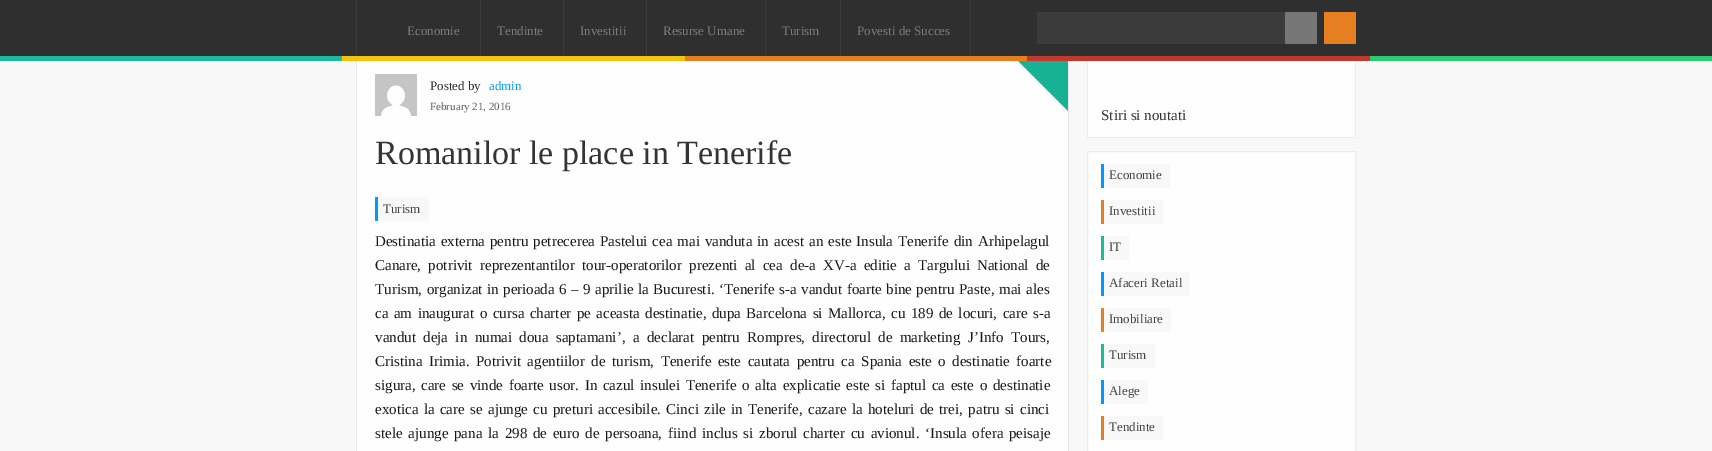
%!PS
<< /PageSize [1712 451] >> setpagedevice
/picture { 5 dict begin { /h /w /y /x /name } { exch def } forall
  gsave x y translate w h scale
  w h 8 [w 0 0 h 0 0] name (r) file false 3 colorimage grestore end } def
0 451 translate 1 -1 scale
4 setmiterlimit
0.973 setgray
0 0 1712 451 rectfill
0.184 setgray
0 0 1712 56 rectfill
0.227 setgray
356 0 1 56 rectfill
480 0 1 56 rectfill
/LiberationSerif-Regular [13 0 0 -13 0 0] selectfont
0.49 setgray
407 35 moveto (Economie) show
0.227 setgray
563 0 1 56 rectfill
0.49 setgray
497 35 moveto (Tendinte) show
0.227 setgray
646 0 1 56 rectfill
0.49 setgray
580 35 moveto (Investitii) show
0.227 setgray
765 0 1 56 rectfill
0.49 setgray
663 35 moveto (Resurse Umane) show
0.227 setgray
840 0 1 56 rectfill
0.49 setgray
782 35 moveto (Turism) show
0.227 setgray
970 0 1 56 rectfill
0.49 setgray
857 35 moveto (Povesti de Succes) show
0.231 setgray
1037 12 248 32 rectfill
0.463 setgray
1285 12 32 32 rectfill
0.902 0.494 0.133 setrgbcolor
1324 12 32 32 rectfill
0.18 0.8 0.443 setrgbcolor
1370 56 342 5 rectfill
0.102 0.737 0.612 setrgbcolor
0 56 342 5 rectfill
0.945 0.769 0.059 setrgbcolor
342 56 343 5 rectfill
0.902 0.494 0.133 setrgbcolor
685 56 342 5 rectfill
0.753 0.224 0.169 setrgbcolor
1027 56 343 5 rectfill
0.996 setgray
357 61 711 390 rectfill
0.902 setgray
1068 61 1 390 rectfill
356 61 1 390 rectfill
(img1.rgb) 375 74 42 42 picture
0.176 setgray
430 90 moveto (Posted by) show
0 0.604 1 setrgbcolor
489 90 moveto (admin) show
/LiberationSerif-Regular [11 0 0 -11 0 0] selectfont
0.376 setgray
430 110 moveto (February 21, 2016) show
0.098 0.694 0.576 setrgbcolor
newpath 1018 61 moveto 1068 61 lineto 1068 111 lineto closepath fill
/LiberationSerif-Regular [34 0 0 -34 0 0] selectfont
0.204 setgray
375 164 moveto (Romanilor le place in Tenerife) show
0.973 setgray
378 197 51 24 rectfill
0 0.604 1 setrgbcolor
375 197 3 24 rectfill
/LiberationSerif-Regular [13 0 0 -13 0 0] selectfont
0.259 setgray
383 213 moveto (Turism) show
/LiberationSerif-Regular [15 0 0 -15 0 0] selectfont
0.094 setgray
375 246 moveto 1.25 0 32 (Destinatia externa pentru petrecerea Pastelui cea mai vanduta in acest an este Insula Tenerife din Arhipelagul) widthshow
375 270 moveto 3.5 0 32 (Canare, potrivit reprezentantilor tour-operatorilor prezenti al cea de-a XV-a editie a Targului National de) widthshow
375 294 moveto 0.75 0 32 (Turism, organizat in perioada 6 – 9 aprilie la Bucuresti. ‘Tenerife s-a vandut foarte bine pentru Paste, mai ales) widthshow
375 318 moveto 1.7 0 32 (ca am inaugurat o cursa charter pe aceasta destinatie, dupa Barcelona si Mallorca, cu 189 de locuri, care s-a) widthshow
375 342 moveto 3.6 0 32 (vandut deja in numai doua saptamani’, a declarat pentru Rompres, directorul de marketing J’Info Tours,) widthshow
375 366 moveto 2.75 0 32 (Cristina Irimia. Potrivit agentiilor de turism, Tenerife este cautata pentru ca Spania este o destinatie foarte) widthshow
375 390 moveto 1.9 0 32 (sigura, care se vinde foarte usor. In cazul insulei Tenerife o alta explicatie este si faptul ca este o destinatie) widthshow
375 414 moveto 1.6 0 32 (exotica la care se ajunge cu preturi accesibile. Cinci zile in Tenerife, cazare la hoteluri de trei, patru si cinci) widthshow
375 438 moveto 2 0 32 (stele ajunge pana la 298 de euro de persoana, fiind inclus si zborul charter cu avionul. ‘Insula ofera peisaje) widthshow
0.996 setgray
1088 61 267 76 rectfill
0.925 setgray
1355 61 1 77 rectfill
1087 137 269 1 rectfill
1087 61 1 77 rectfill
0.204 setgray
1101 120 moveto (Stiri si noutati) show
0.996 setgray
newpath 1087.5 151.5 moveto 1355.5 151.5 lineto 1355.5 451.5 lineto 1087.5 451.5 lineto closepath gsave fill grestore
0.925 setgray
stroke
0.973 setgray
1104 164 66 24 rectfill
0 0.604 1 setrgbcolor
1101 164 3 24 rectfill
/LiberationSerif-Regular [13 0 0 -13 0 0] selectfont
0.259 setgray
1109 179 moveto (Economie) show
0.973 setgray
1104 200 59 24 rectfill
0.902 0.494 0.133 setrgbcolor
1101 200 3 24 rectfill
0.259 setgray
1109 215 moveto (Investitii) show
0.973 setgray
1104 236 25 24 rectfill
0.102 0.737 0.612 setrgbcolor
1101 236 3 24 rectfill
0.259 setgray
1109 251 moveto (IT) show
0.973 setgray
1104 272 86 24 rectfill
0 0.604 1 setrgbcolor
1101 272 3 24 rectfill
0.259 setgray
1109 287 moveto (Afaceri Retail) show
0.973 setgray
1104 308 67 24 rectfill
0.902 0.494 0.133 setrgbcolor
1101 308 3 24 rectfill
0.259 setgray
1109 323 moveto (Imobiliare) show
0.973 setgray
1104 344 51 24 rectfill
0.102 0.737 0.612 setrgbcolor
1101 344 3 24 rectfill
0.259 setgray
1109 359 moveto (Turism) show
0.973 setgray
1104 380 44 24 rectfill
0 0.604 1 setrgbcolor
1101 380 3 24 rectfill
0.259 setgray
1109 395 moveto (Alege) show
0.973 setgray
1104 416 59 24 rectfill
0.902 0.494 0.133 setrgbcolor
1101 416 3 24 rectfill
0.259 setgray
1109 431 moveto (Tendinte) show
showpage
